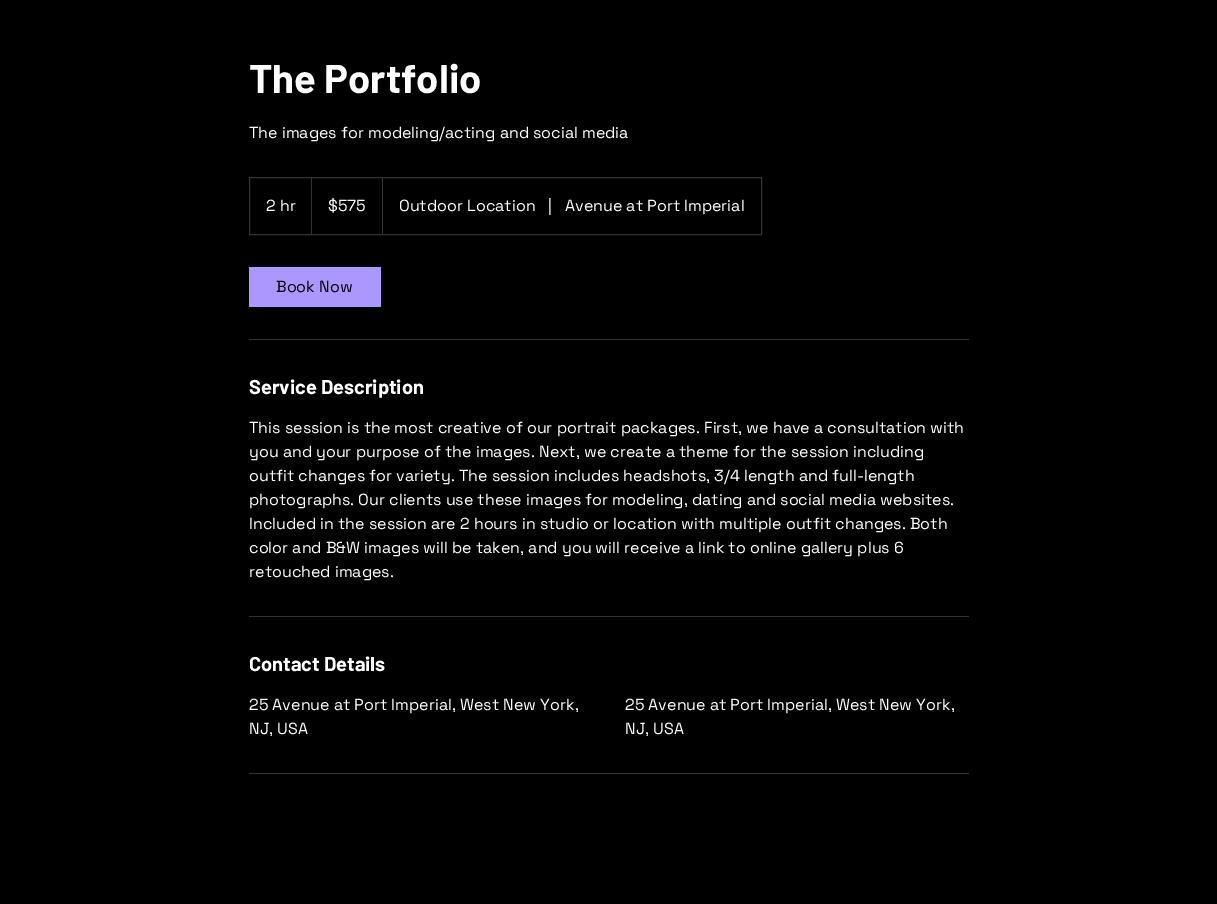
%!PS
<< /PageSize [1217 904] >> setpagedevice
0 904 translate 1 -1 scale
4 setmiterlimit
0 setgray
0 0 1217 904 rectfill
/Barlow-Bold [40 0 0 -40 0 0] selectfont
1 setgray
249 93 moveto (The Portfolio) show
/SpaceGrotesk-Regular [16 0 0 -16 0 0] selectfont
249 138 moveto (The images for modeling/acting and social media) show
0.2 setgray
249.5 177.5 512 57 rectstroke
1 setgray
266 211 moveto (2 hr) show
0.2 setgray
newpath 311 234 moveto 311 177 lineto 312 178 lineto 312 234 lineto closepath fill
1 setgray
328 211 moveto ($575) show
0.2 setgray
newpath 382 234 moveto 382 177 lineto 383 178 lineto 383 234 lineto closepath fill
1 setgray
399 211 moveto (Outdoor Location) show
548 211 moveto (|) show
565 211 moveto (Avenue at Port Imperial) show
0.671 0.592 1 setrgbcolor
249 267 132 40 rectfill
0 setgray
276 292 moveto (Book Now) show
0.2 setgray
249 339 720 1 rectfill
/Barlow-Bold [20 0 0 -20 0 0] selectfont
1 setgray
249 394 moveto (Service Description) show
/SpaceGrotesk-Regular [16 0 0 -16 0 0] selectfont
249 433 moveto (This session is the most creative of our portrait packages. First, we have a consultation with) show
249 457 moveto (you and your purpose of the images. Next, we create a theme for the session including) show
249 481 moveto (outfit changes for variety. The session includes headshots, 3/4 length and full-length) show
249 505 moveto (photographs. Our clients use these images for modeling, dating and social media websites.) show
249 529 moveto (Included in the session are 2 hours in studio or location with multiple outfit changes. Both) show
249 553 moveto (color and B&W images will be taken, and you will receive a link to online gallery plus 6) show
249 577 moveto (retouched images.) show
0.2 setgray
249 616 720 1 rectfill
/Barlow-Bold [20 0 0 -20 0 0] selectfont
1 setgray
249 671 moveto (Contact Details) show
/SpaceGrotesk-Regular [16 0 0 -16 0 0] selectfont
249 710 moveto (25 Avenue at Port Imperial, West New York,) show
249 734 moveto (NJ, USA) show
625 710 moveto (25 Avenue at Port Imperial, West New York,) show
625 734 moveto (NJ, USA) show
0.2 setgray
249 773 720 1 rectfill
showpage
